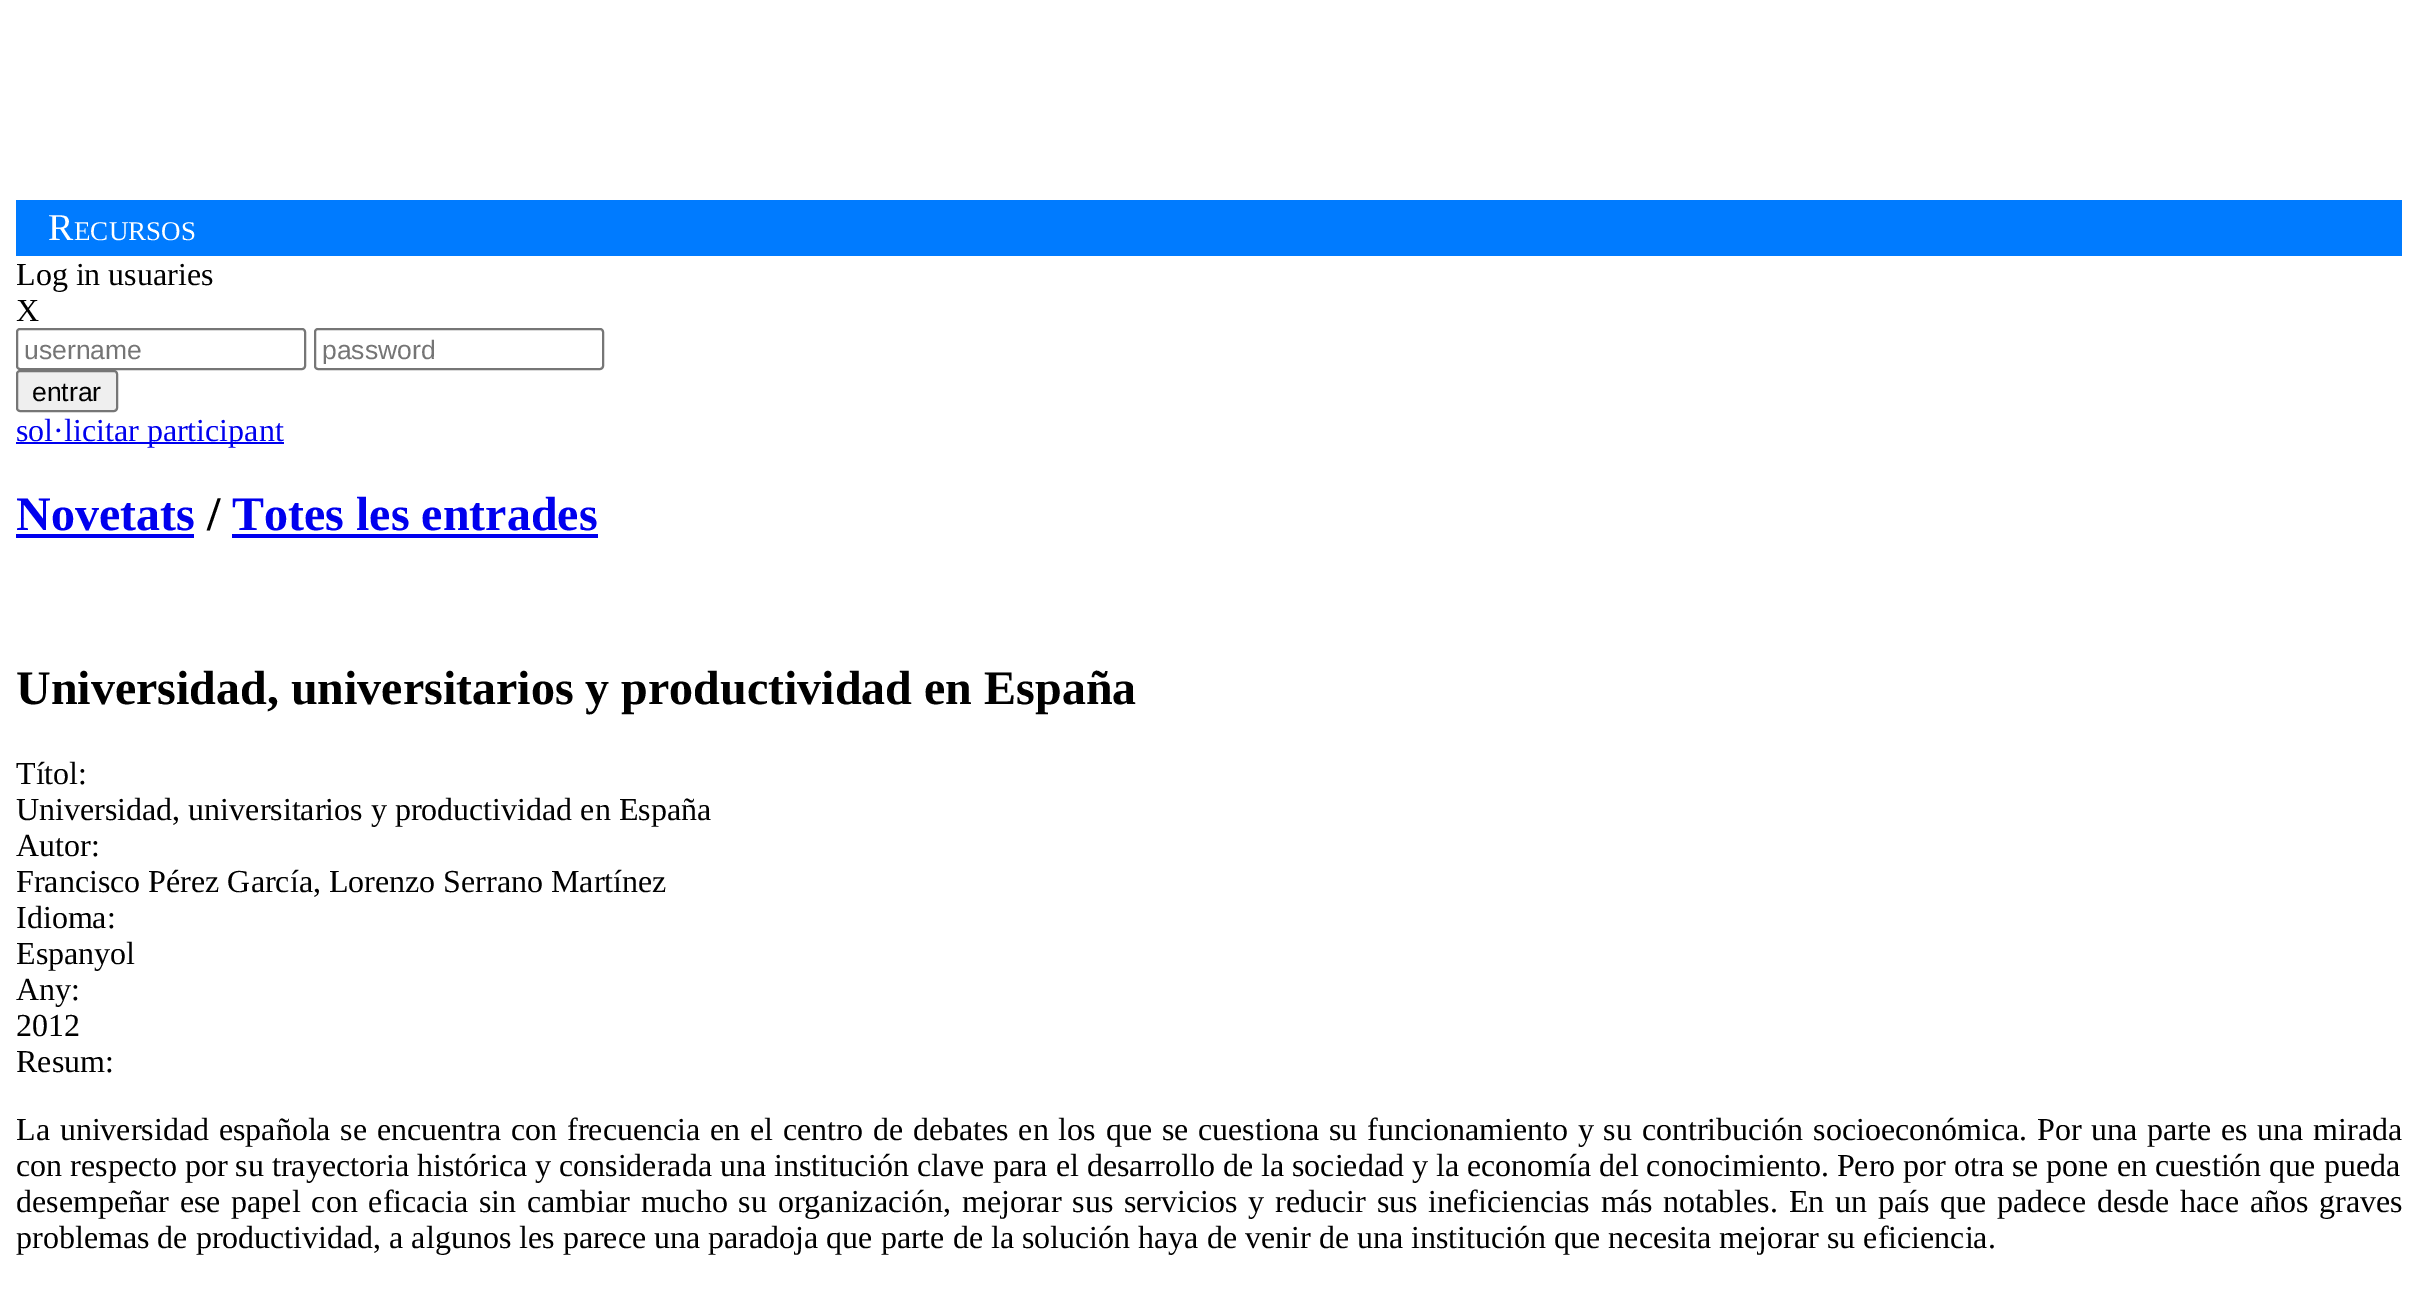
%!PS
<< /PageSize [2417 1290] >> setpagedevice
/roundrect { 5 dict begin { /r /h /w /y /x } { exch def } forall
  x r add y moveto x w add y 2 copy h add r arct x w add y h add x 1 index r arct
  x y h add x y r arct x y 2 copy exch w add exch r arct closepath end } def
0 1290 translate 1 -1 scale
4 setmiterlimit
1 setgray
0 0 2417 1290 rectfill
0 0.482 1 setrgbcolor
16 200 2386 56 rectfill
/LiberationSerif-Regular [38 0 0 -38 0 0] selectfont
1 setgray
48 240 moveto (R) show
/LiberationSerif-Regular [27 0 0 -27 0 0] selectfont
74 240 moveto (ECURSOS) show
/LiberationSerif-Regular [32 0 0 -32 0 0] selectfont
0 setgray
16 285 moveto (Log in usuaries) show
16 321 moveto (X) show
0.463 setgray
2 setlinewidth
17 329 288 40 3 roundrect stroke
/LiberationSans-Regular [26.5 0 0 -26.5 0 0] selectfont
0.459 setgray
24 359 moveto (username) show
0.463 setgray
315 329 288 40 3 roundrect stroke
gsave
322 334 274 30 rectclip
0.459 setgray
322 359 moveto (password) show
grestore
0.937 setgray
17 371 100 40 3 roundrect gsave fill grestore
0.463 setgray
stroke
0 setgray
32 401 moveto (entrar) show
0 0 0.933 setrgbcolor
16 442 268 2 rectfill
/LiberationSerif-Regular [32 0 0 -32 0 0] selectfont
16 441 moveto (sol·licitar participant) show
/LiberationSerif-Bold [48 0 0 -48 0 0] selectfont
16 530 moveto (Novetats) show
16 534 178 4 rectfill
0 setgray
207 530 moveto (/) show
0 0 0.933 setrgbcolor
232 530 moveto (Totes les entrades) show
232 534 366 4 rectfill
0 setgray
16 704 moveto (Universidad, universitarios y productividad en España) show
/LiberationSerif-Regular [32 0 0 -32 0 0] selectfont
16 784 moveto (Títol:) show
16 820 moveto (Universidad, universitarios y productividad en España) show
16 856 moveto (Autor:) show
16 892 moveto (Francisco Pérez García, Lorenzo Serrano Martínez) show
16 928 moveto (Idioma:) show
16 964 moveto (Espanyol) show
16 1000 moveto (Any:) show
16 1036 moveto (2012) show
16 1072 moveto (Resum:) show
16 1140 moveto 1.8 0 32 (La universidad española se encuentra con frecuencia en el centro de debates en los que se cuestiona su funcionamiento y su contribución socioeconómica. Por una parte es una mirada) widthshow
16 1176 moveto (con respecto por su trayectoria histórica y considerada una institución clave para el desarrollo de la sociedad y la economía del conocimiento. Pero por otra se pone en cuestión que pueda) show
16 1212 moveto 2.8 0 32 (desempeñar ese papel con eficacia sin cambiar mucho su organización, mejorar sus servicios y reducir sus ineficiencias más notables. En un país que padece desde hace años graves) widthshow
16 1248 moveto (problemas de productividad, a algunos les parece una paradoja que parte de la solución haya de venir de una institución que necesita mejorar su eficiencia.) show
showpage
